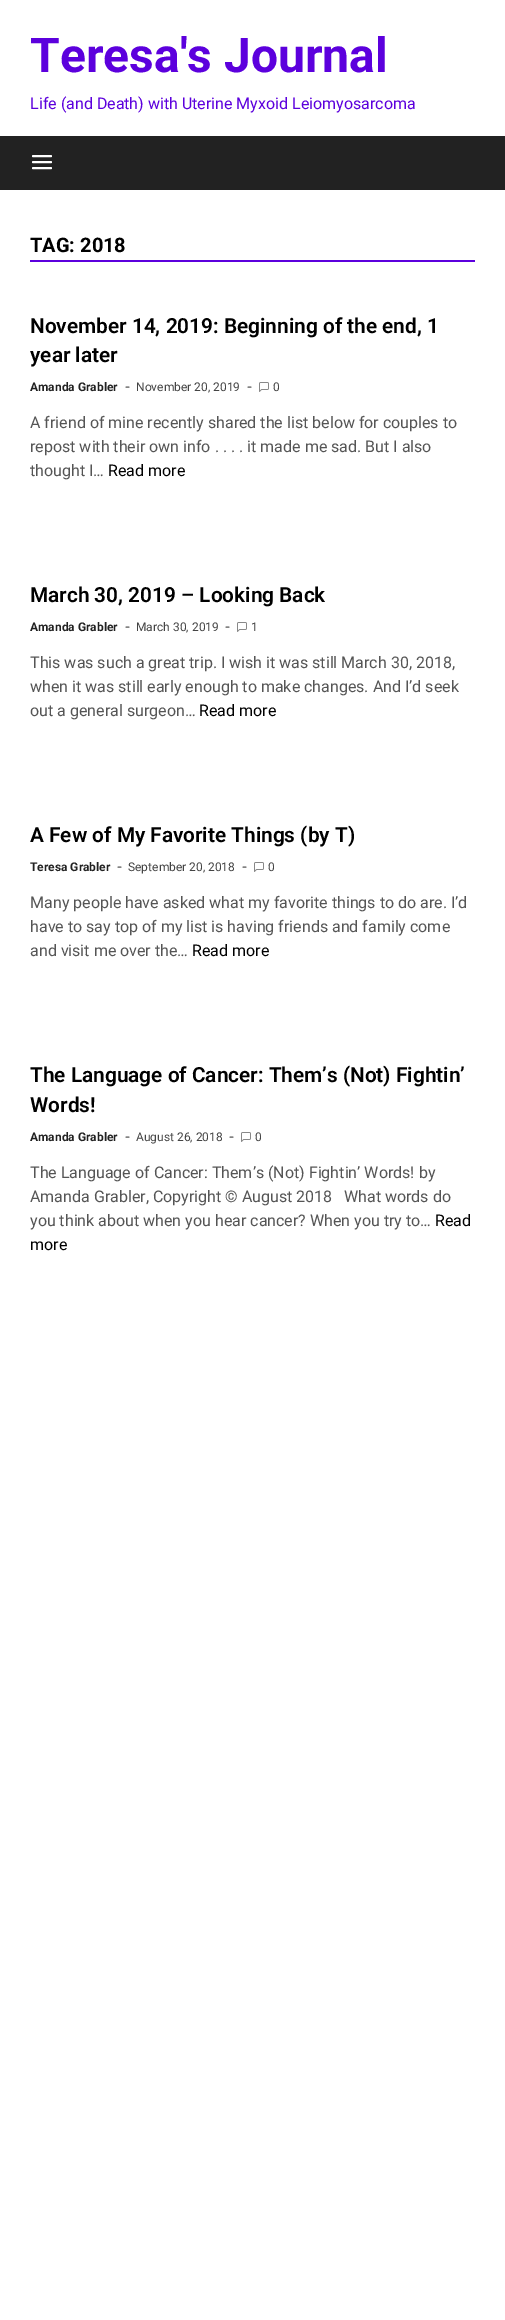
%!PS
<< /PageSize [505 2320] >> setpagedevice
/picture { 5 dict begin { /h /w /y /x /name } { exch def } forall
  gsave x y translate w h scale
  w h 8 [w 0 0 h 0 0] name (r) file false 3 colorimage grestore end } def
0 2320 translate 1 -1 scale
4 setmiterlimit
1 setgray
0 0 505 2320 rectfill
/Roboto-Bold [48 0 0 -48 0 0] selectfont
0.361 0 0.867 setrgbcolor
30 72 moveto (Teresa's Journal) show
/Roboto-Regular [16 0 0 -16 0 0] selectfont
30 109 moveto (Life \(and Death\) with Uterine Myxoid Leiomyosarcoma) show
0.133 setgray
0 136 505 54 rectfill
1 setgray
2 setlinewidth
1 setlinecap
1 setlinejoin
newpath 33 162 moveto 51 162 lineto 33 156 moveto 51 156 lineto 33 168 moveto 51 168 lineto stroke
0.361 0 0.867 setrgbcolor
30 260 445 2 rectfill
/Roboto-Bold [20 0 0 -20 0 0] selectfont
0 setgray
30 252 moveto (TAG: 2018) show
/Roboto-SemiBold [20.8 0 0 -20.8 0 0] selectfont
30 333 moveto (November 14, 2019: Beginning of the end, 1) show
30 362 moveto (year later) show
/Roboto-Bold [12 0 0 -12 0 0] selectfont
0.133 setgray
30 391 moveto (Amanda Grabler) show
0.333 setgray
1 setlinewidth
newpath 126 387 moveto 129 387 lineto stroke
/Roboto-Regular [12 0 0 -12 0 0] selectfont
0.267 setgray
136 391 moveto (November 20, 2019) show
0.333 setgray
newpath 248 387 moveto 251 387 lineto stroke
(img1.rgb) 259 382 10 10 picture
0.267 setgray
273 391 moveto (0) show
/Roboto-Regular [16 0 0 -16 0 0] selectfont
0.333 setgray
30 428 moveto (A friend of mine recently shared the list below for couples to) show
30 452 moveto (repost with their own info . . . . it made me sad. But I also) show
30 476 moveto (thought I…) show
0 setgray
108 476 moveto (Read more) show
/Roboto-SemiBold [20.8 0 0 -20.8 0 0] selectfont
30 602 moveto (March 30, 2019 – Looking Back) show
/Roboto-Bold [12 0 0 -12 0 0] selectfont
0.133 setgray
30 631 moveto (Amanda Grabler) show
0.333 setgray
newpath 126 627 moveto 129 627 lineto stroke
/Roboto-Regular [12 0 0 -12 0 0] selectfont
0.267 setgray
136 631 moveto (March 30, 2019) show
0.333 setgray
newpath 226 627 moveto 229 627 lineto stroke
(img1.rgb) 237 622 10 10 picture
0.267 setgray
251 631 moveto (1) show
/Roboto-Regular [16 0 0 -16 0 0] selectfont
0.333 setgray
30 668 moveto (This was such a great trip. I wish it was still March 30, 2018,) show
30 692 moveto (when it was still early enough to make changes. And I’d seek) show
30 716 moveto (out a general surgeon…) show
0 setgray
199 716 moveto (Read more) show
/Roboto-SemiBold [20.8 0 0 -20.8 0 0] selectfont
30 842 moveto (A Few of My Favorite Things \(by T\)) show
/Roboto-Bold [12 0 0 -12 0 0] selectfont
0.133 setgray
30 871 moveto (Teresa Grabler) show
0.333 setgray
newpath 118 867 moveto 121 867 lineto stroke
/Roboto-Regular [12 0 0 -12 0 0] selectfont
0.267 setgray
128 871 moveto (September 20, 2018) show
0.333 setgray
newpath 243 867 moveto 246 867 lineto stroke
(img1.rgb) 254 862 10 10 picture
0.267 setgray
268 871 moveto (0) show
/Roboto-Regular [16 0 0 -16 0 0] selectfont
0.333 setgray
30 908 moveto (Many people have asked what my favorite things to do are. I’d) show
30 932 moveto (have to say top of my list is having friends and family come) show
30 956 moveto (and visit me over the…) show
0 setgray
192 956 moveto (Read more) show
/Roboto-SemiBold [20.8 0 0 -20.8 0 0] selectfont
30 1082 moveto (The Language of Cancer: Them’s \(Not\) Fightin’) show
30 1112 moveto (Words!) show
/Roboto-Bold [12 0 0 -12 0 0] selectfont
0.133 setgray
30 1141 moveto (Amanda Grabler) show
0.333 setgray
newpath 126 1137 moveto 129 1137 lineto stroke
/Roboto-Regular [12 0 0 -12 0 0] selectfont
0.267 setgray
136 1141 moveto (August 26, 2018) show
0.333 setgray
newpath 230 1137 moveto 233 1137 lineto stroke
(img1.rgb) 241 1132 10 10 picture
0.267 setgray
255 1141 moveto (0) show
/Roboto-Regular [16 0 0 -16 0 0] selectfont
0.333 setgray
30 1178 moveto (The Language of Cancer: Them’s \(Not\) Fightin’ Words! by) show
30 1202 moveto (Amanda Grabler, Copyright © August 2018   What words do) show
30 1226 moveto (you think about when you hear cancer? When you try to…) show
0 setgray
435 1226 moveto (Read) show
30 1250 moveto (more) show
showpage
